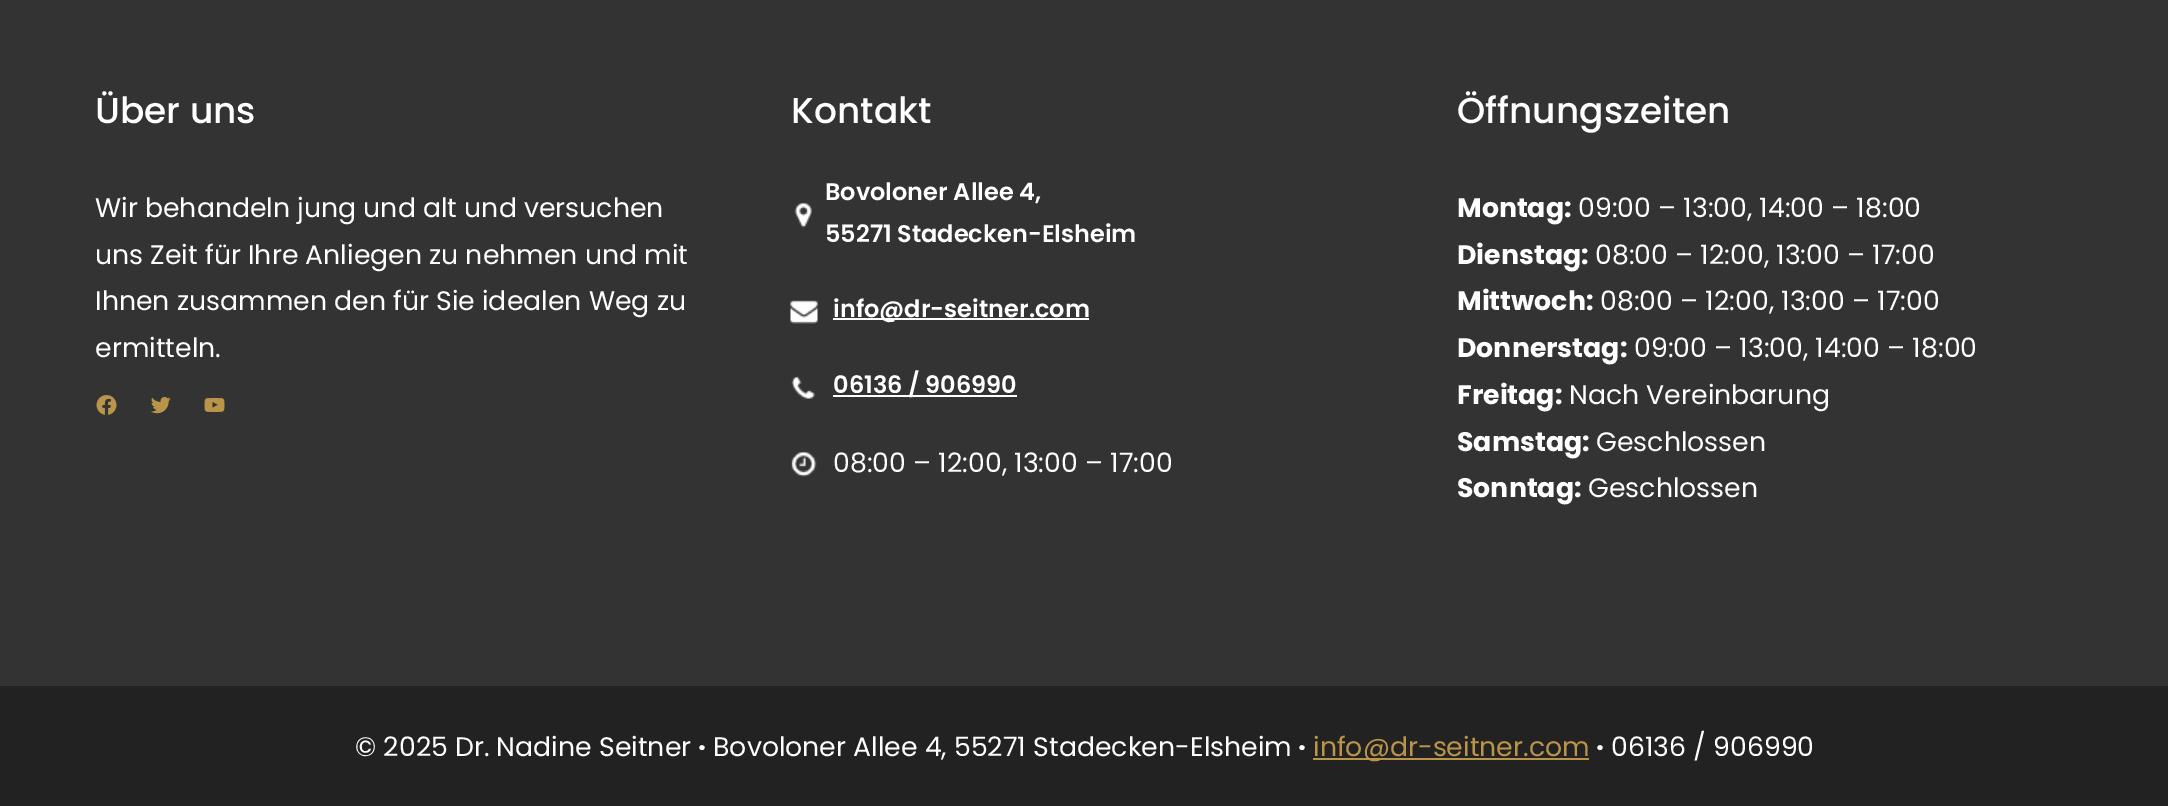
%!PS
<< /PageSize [2168 806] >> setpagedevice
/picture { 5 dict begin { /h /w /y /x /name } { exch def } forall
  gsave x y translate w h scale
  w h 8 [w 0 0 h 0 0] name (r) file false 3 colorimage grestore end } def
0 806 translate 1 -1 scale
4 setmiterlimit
0.2 setgray
0 0 2168 806 rectfill
/Poppins-Medium [36 0 0 -36 0 0] selectfont
1 setgray
95 123 moveto (Über uns) show
/Poppins-Regular [26.75 0 0 -26.75 0 0] selectfont
95 217 moveto (Wir behandeln jung und alt und versuchen) show
95 264 moveto (uns Zeit für Ihre Anliegen zu nehmen und mit) show
95 310 moveto (Ihnen zusammen den für Sie idealen Weg zu) show
95 357 moveto (ermitteln.) show
(img1.rgb) 96 395 21 20 picture
(img2.rgb) 151 397 20 17 picture
(img3.rgb) 204 398 21 14 picture
/Poppins-Medium [36 0 0 -36 0 0] selectfont
791 123 moveto (Kontakt) show
(img4.rgb) 794 202 18 26 picture
/Poppins-SemiBold [24 0 0 -24 0 0] selectfont
825 200 moveto (Bovoloner Allee 4,) show
825 242 moveto (55271 Stadecken-Elsheim) show
(img5.rgb) 790 300 28 24 picture
833 318 256 2 rectfill
833 317 moveto (info@dr-seitner.com) show
(img6.rgb) 791 376 24 23 picture
833 395 184 2 rectfill
833 393 moveto (06136 / 906990) show
(img7.rgb) 791 451 26 26 picture
/Poppins-Regular [26.75 0 0 -26.75 0 0] selectfont
833 472 moveto (08:00 – 12:00, 13:00 – 17:00) show
/Poppins-Medium [36 0 0 -36 0 0] selectfont
1457 123 moveto (Öffnungszeiten) show
/Poppins-Bold [26.75 0 0 -26.75 0 0] selectfont
1457 217 moveto (Montag:) show
/Poppins-Regular [26.75 0 0 -26.75 0 0] selectfont
1578 217 moveto (09:00 – 13:00, 14:00 – 18:00) show
/Poppins-Bold [26.75 0 0 -26.75 0 0] selectfont
1457 264 moveto (Dienstag:) show
/Poppins-Regular [26.75 0 0 -26.75 0 0] selectfont
1595 264 moveto (08:00 – 12:00, 13:00 – 17:00) show
/Poppins-Bold [26.75 0 0 -26.75 0 0] selectfont
1457 310 moveto (Mittwoch:) show
/Poppins-Regular [26.75 0 0 -26.75 0 0] selectfont
1600 310 moveto (08:00 – 12:00, 13:00 – 17:00) show
/Poppins-Bold [26.75 0 0 -26.75 0 0] selectfont
1457 357 moveto (Donnerstag:) show
/Poppins-Regular [26.75 0 0 -26.75 0 0] selectfont
1634 357 moveto (09:00 – 13:00, 14:00 – 18:00) show
/Poppins-Bold [26.75 0 0 -26.75 0 0] selectfont
1457 404 moveto (Freitag:) show
/Poppins-Regular [26.75 0 0 -26.75 0 0] selectfont
1569 404 moveto (Nach Vereinbarung) show
/Poppins-Bold [26.75 0 0 -26.75 0 0] selectfont
1457 451 moveto (Samstag:) show
/Poppins-Regular [26.75 0 0 -26.75 0 0] selectfont
1596 451 moveto (Geschlossen) show
/Poppins-Bold [26.75 0 0 -26.75 0 0] selectfont
1457 497 moveto (Sonntag:) show
/Poppins-Regular [26.75 0 0 -26.75 0 0] selectfont
1588 497 moveto (Geschlossen) show
0.133 setgray
0 686 2168 120 rectfill
1 setgray
355 756 moveto (© 2025 Dr. Nadine Seitner) show
/Poppins-Bold [26.75 0 0 -26.75 0 0] selectfont
698 756 moveto (·) show
/Poppins-Regular [26.75 0 0 -26.75 0 0] selectfont
713 756 moveto (Bovoloner Allee 4, 55271 Stadecken-Elsheim) show
/Poppins-Bold [26.75 0 0 -26.75 0 0] selectfont
1298 756 moveto (·) show
0.729 0.58 0.286 setrgbcolor
1313 758 276 2 rectfill
/Poppins-Regular [26.75 0 0 -26.75 0 0] selectfont
1313 756 moveto (info@dr-seitner.com) show
/Poppins-Bold [26.75 0 0 -26.75 0 0] selectfont
1 setgray
1596 756 moveto (·) show
/Poppins-Regular [26.75 0 0 -26.75 0 0] selectfont
1611 756 moveto (06136 / 906990) show
showpage
